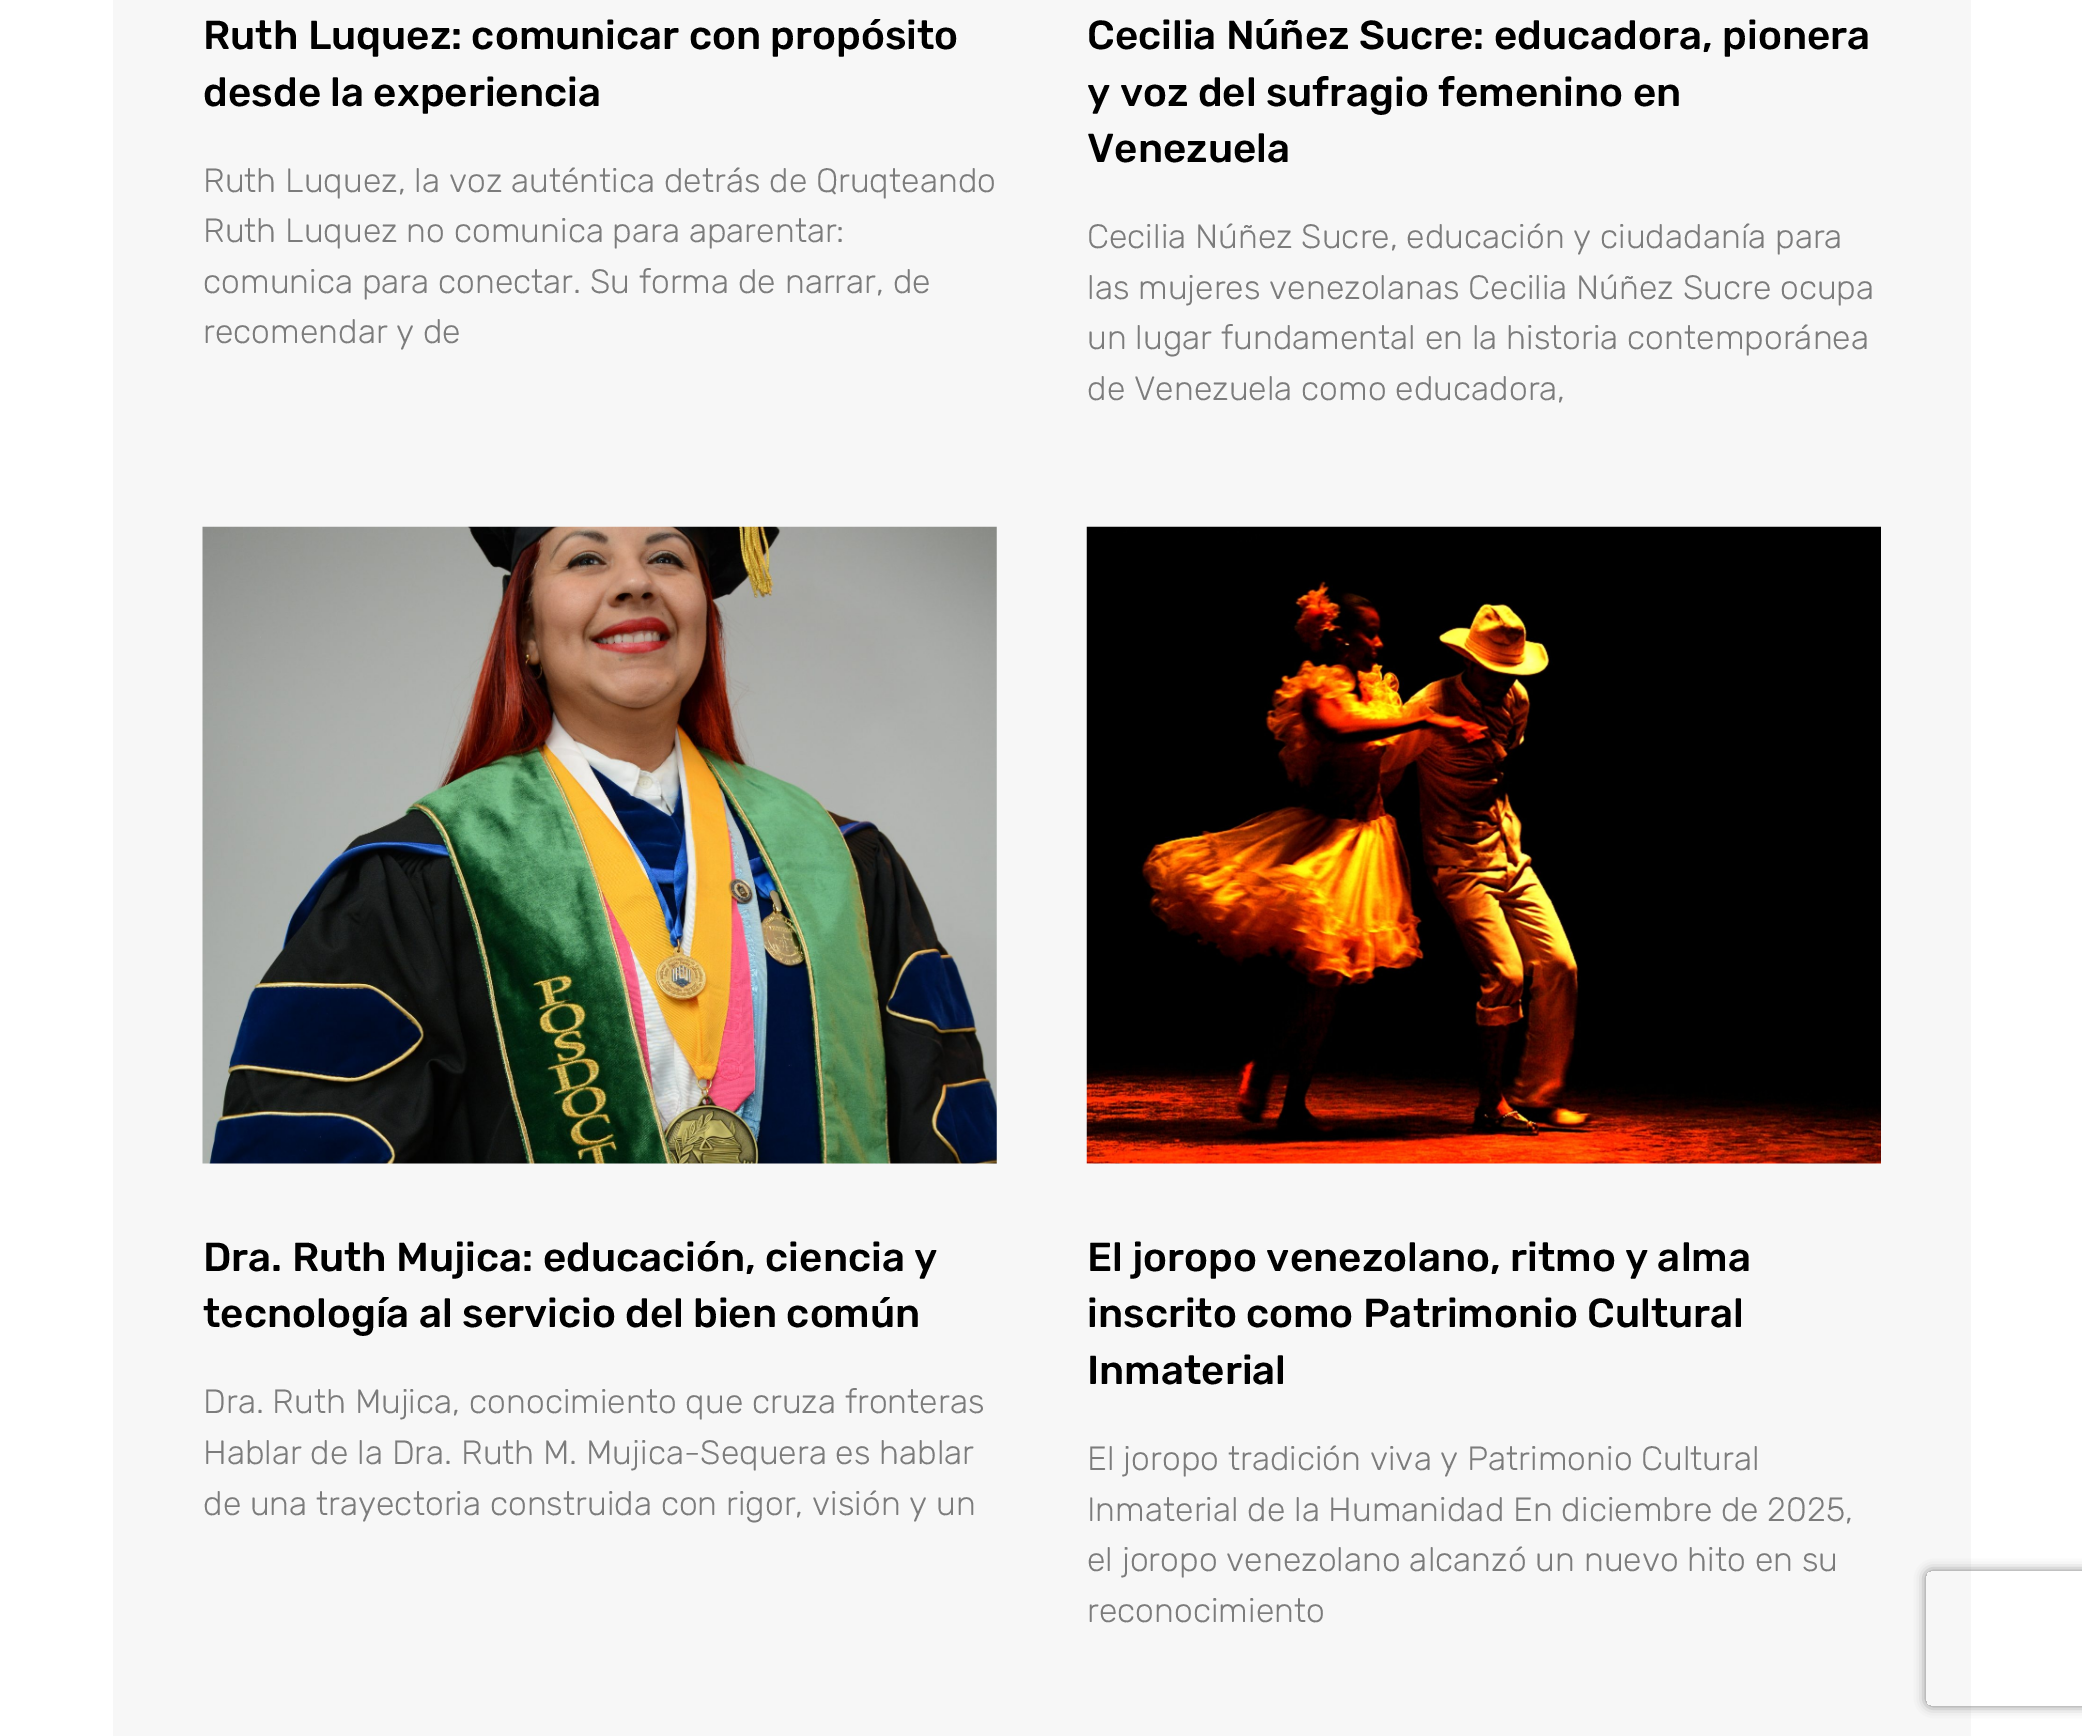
%!PS
<< /PageSize [2082 1736] /PageUsesTransparency true >> setpagedevice
/alpha { dup .setfillconstantalpha .setstrokeconstantalpha } def
/roundrect { 5 dict begin { /r /h /w /y /x } { exch def } forall
  x r add y moveto x w add y 2 copy h add r arct x w add y h add x 1 index r arct
  x y h add x y r arct x y 2 copy exch w add exch r arct closepath end } def
/shadow { 12 dict begin { /a /b /q /h /w /y /x } { exch def } forall gsave /was 0 def
  9 -2 -9 { dup b mul 4 div /e exch def 1 sub .425 mul 2.718 exch exp 1 add a .99 .min exch div /now exch def
    1 1 now sub 1 was sub div sub alpha /was now def
    w h .min e 2 mul add 0 gt { x e sub y e sub w e 2 mul add h e 2 mul add
      q e add b .6 mul add w h .min 2 div e add .min 0 .max roundrect fill } if } for grestore end } def
/picture { 5 dict begin { /h /w /y /x /name } { exch def } forall
  gsave x y translate w h scale
  w h 8 [w 0 0 h 0 0] name (r) file false 3 colorimage grestore end } def
0 .pushpdf14devicefilter
0 1736 translate 1 -1 scale
4 setmiterlimit
1 setgray
0 0 2082 1736 rectfill
0.969 setgray
113 0 1858 1736 rectfill
/Rubik-Medium [40.5 0 0 -40.5 0 0] selectfont
0 setgray
203 49 moveto (Ruth Luquez: comunicar con propósito) show
203 106 moveto (desde la experiencia) show
/Rubik-Light [33.75 0 0 -33.75 0 0] selectfont
0.486 setgray
203 192 moveto (Ruth Luquez, la voz auténtica detrás de Qruqteando) show
203 242 moveto (Ruth Luquez no comunica para aparentar:) show
203 293 moveto (comunica para conectar. Su forma de narrar, de) show
203 343 moveto (recomendar y de) show
/Rubik-Medium [40.5 0 0 -40.5 0 0] selectfont
0 setgray
1087 49 moveto (Cecilia Núñez Sucre: educadora, pionera) show
1087 106 moveto (y voz del sufragio femenino en) show
1087 162 moveto (Venezuela) show
/Rubik-Light [33.75 0 0 -33.75 0 0] selectfont
0.486 setgray
1087 248 moveto (Cecilia Núñez Sucre, educación y ciudadanía para) show
1087 299 moveto (las mujeres venezolanas Cecilia Núñez Sucre ocupa) show
1087 349 moveto (un lugar fundamental en la historia contemporánea) show
1087 400 moveto (de Venezuela como educadora,) show
(img1.rgb) 202 526 795 638 picture
/Rubik-Medium [40.5 0 0 -40.5 0 0] selectfont
0 setgray
203 1271 moveto (Dra. Ruth Mujica: educación, ciencia y) show
203 1327 moveto (tecnología al servicio del bien común) show
/Rubik-Light [33.75 0 0 -33.75 0 0] selectfont
0.486 setgray
203 1413 moveto (Dra. Ruth Mujica, conocimiento que cruza fronteras) show
203 1464 moveto (Hablar de la Dra. Ruth M. Mujica-Sequera es hablar) show
203 1515 moveto (de una trayectoria construida con rigor, visión y un) show
(img2.rgb) 1086 526 795 638 picture
/Rubik-Medium [40.5 0 0 -40.5 0 0] selectfont
0 setgray
1087 1271 moveto (El joropo venezolano, ritmo y alma) show
1087 1327 moveto (inscrito como Patrimonio Cultural) show
1087 1384 moveto (Inmaterial) show
/Rubik-Light [33.75 0 0 -33.75 0 0] selectfont
0.486 setgray
1087 1470 moveto (El joropo tradición viva y Patrimonio Cultural) show
1087 1521 moveto (Inmaterial de la Humanidad En diciembre de 2025,) show
1087 1571 moveto (el joropo venezolano alcanzó un nuevo hito en su) show
1087 1622 moveto (reconocimiento) show
gsave
newpath 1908 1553 moveto 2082 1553 lineto 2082 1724 lineto 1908 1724 lineto closepath 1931 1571 moveto 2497 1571 lineto 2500 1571 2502 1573 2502 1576 curveto 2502 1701 lineto 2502 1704 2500 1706 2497 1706 curveto 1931 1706 lineto 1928 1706 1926 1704 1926 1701 curveto 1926 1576 lineto 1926 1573 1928 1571 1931 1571 curveto closepath eoclip newpath
0.502 setgray
1926 1571 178 135 5 5.5 1 shadow
grestore
.poppdf14devicefilter showpage
